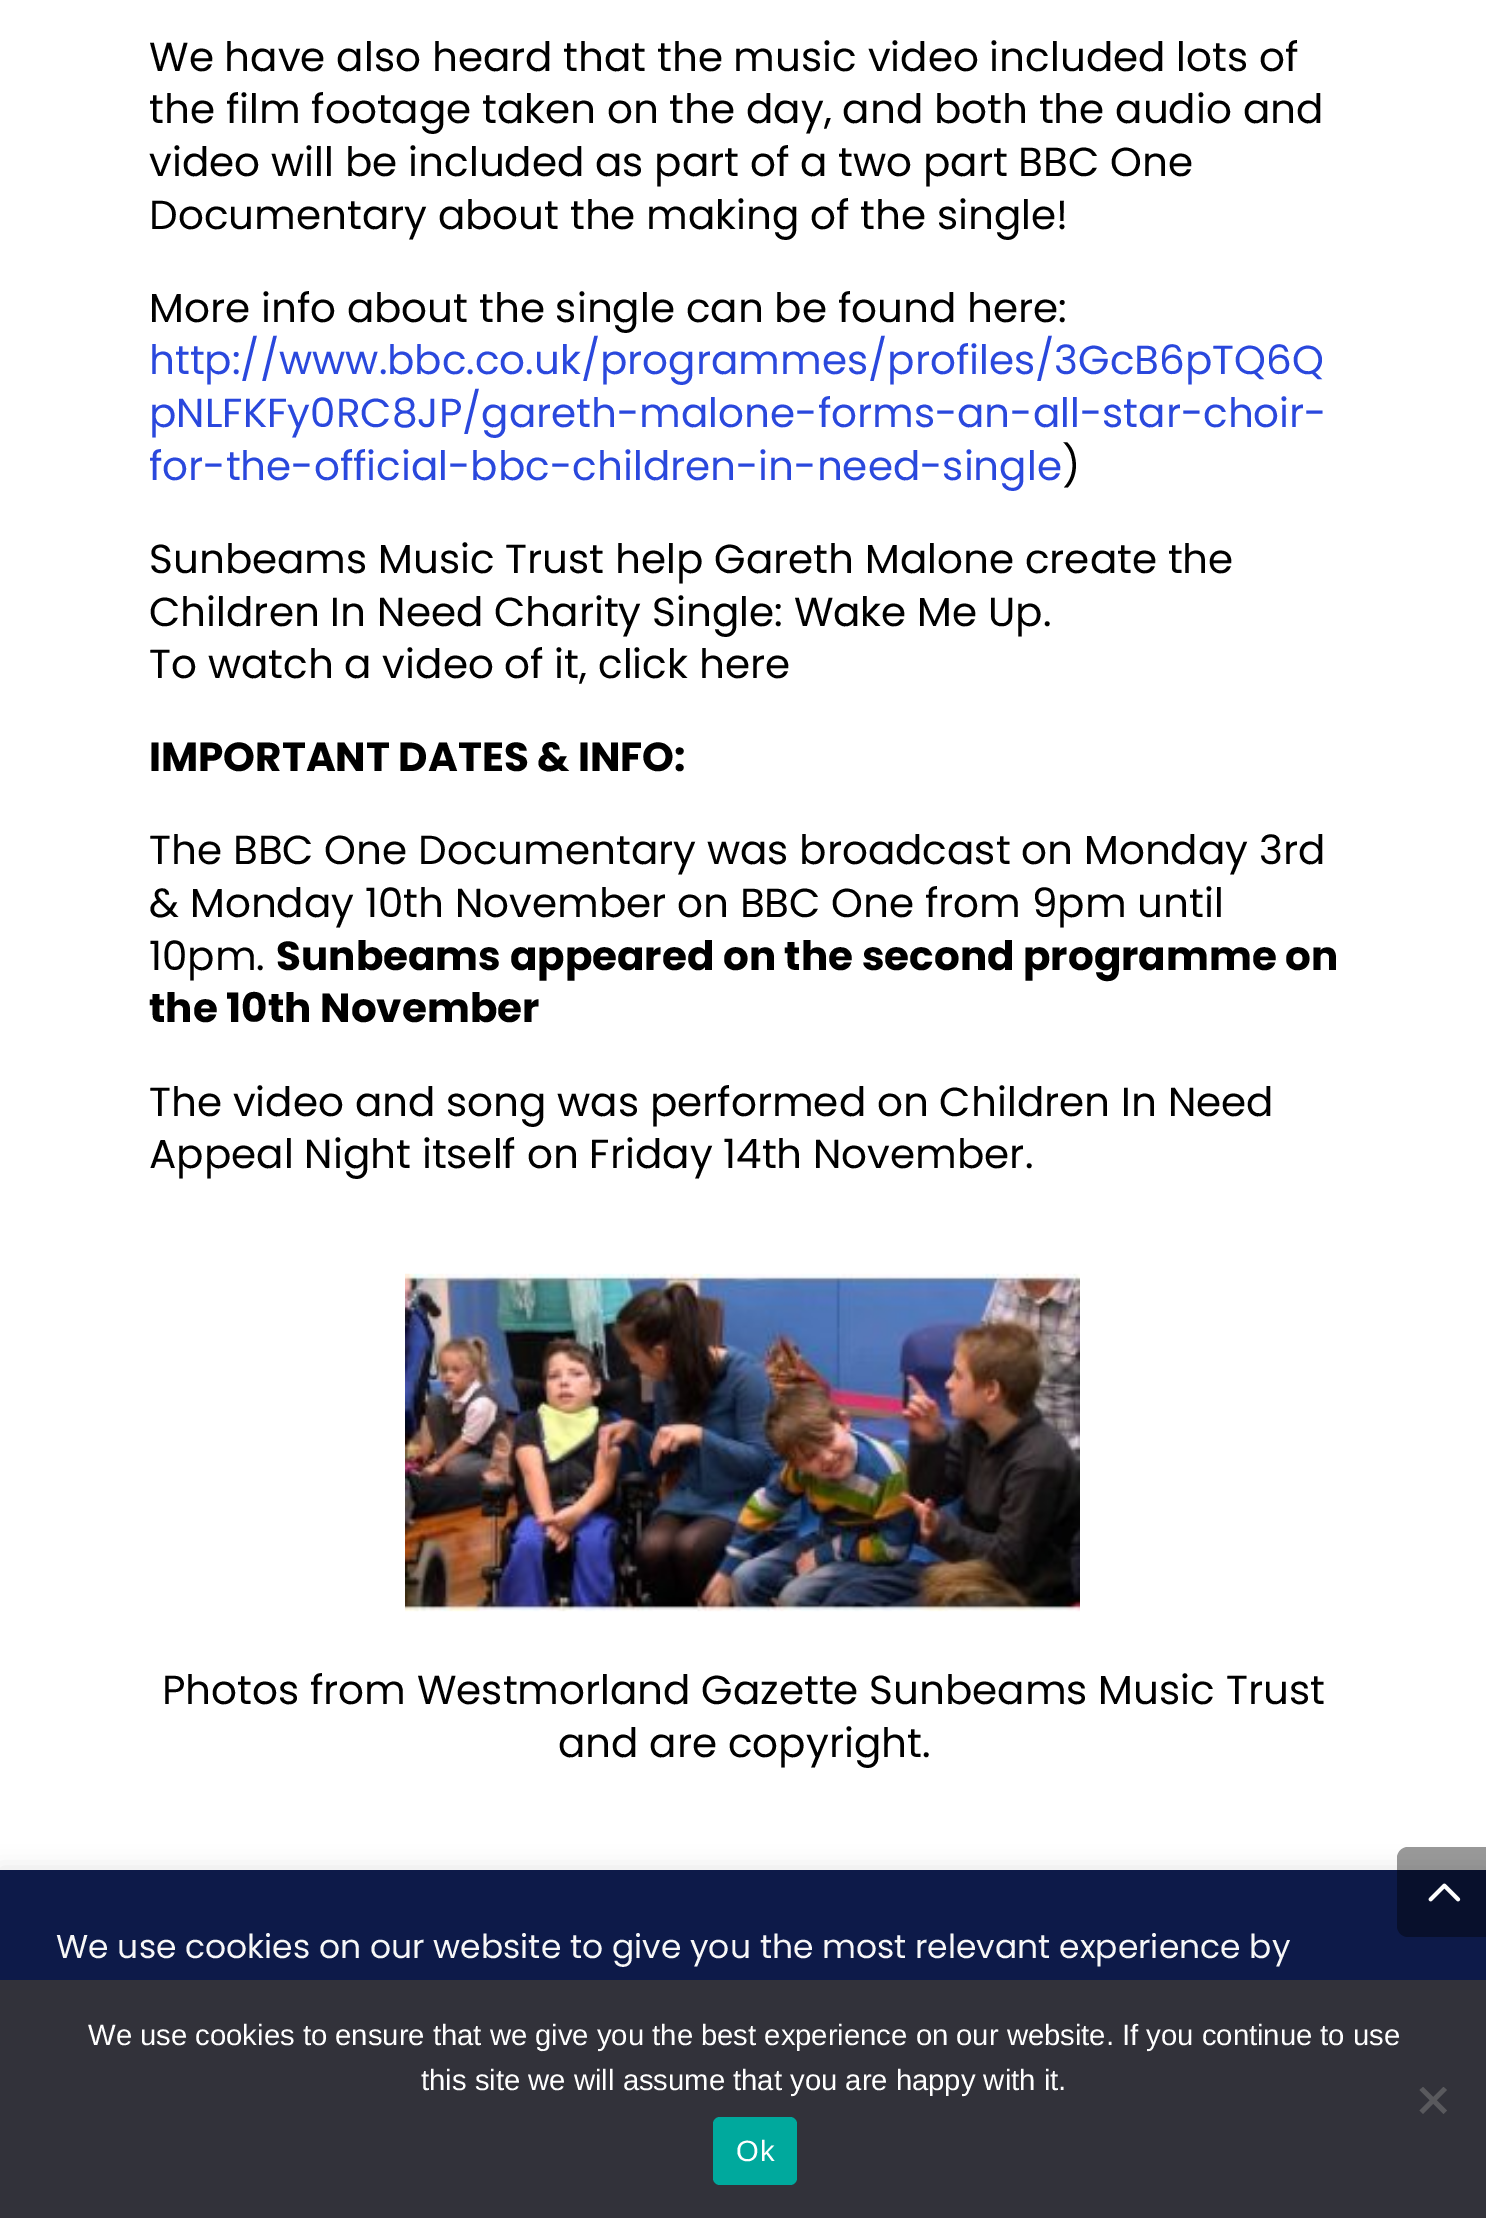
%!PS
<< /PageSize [1486 2218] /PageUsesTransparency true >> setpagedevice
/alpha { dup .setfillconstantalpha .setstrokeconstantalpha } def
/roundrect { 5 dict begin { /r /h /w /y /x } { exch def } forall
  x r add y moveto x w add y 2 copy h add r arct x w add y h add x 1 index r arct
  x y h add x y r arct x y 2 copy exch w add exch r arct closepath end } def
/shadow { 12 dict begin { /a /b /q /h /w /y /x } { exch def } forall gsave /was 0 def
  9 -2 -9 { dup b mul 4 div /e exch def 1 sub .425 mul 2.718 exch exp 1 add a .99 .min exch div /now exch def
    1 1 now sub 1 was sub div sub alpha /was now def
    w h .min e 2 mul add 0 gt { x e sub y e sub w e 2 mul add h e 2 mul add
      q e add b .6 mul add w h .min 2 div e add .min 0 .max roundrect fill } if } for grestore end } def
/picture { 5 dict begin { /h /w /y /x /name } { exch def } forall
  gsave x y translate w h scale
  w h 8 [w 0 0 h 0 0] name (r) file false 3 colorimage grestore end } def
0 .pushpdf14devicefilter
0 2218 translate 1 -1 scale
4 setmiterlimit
1 setgray
0 0 1486 2218 rectfill
/Poppins-Regular [40.5 0 0 -40.5 0 0] selectfont
0 setgray
149 71 moveto (We have also heard that the music video included lots of) show
149 123 moveto (the film footage taken on the day, and both the audio and) show
149 176 moveto (video will be included as part of a two part BBC One) show
149 229 moveto (Documentary about the making of the single!) show
149 322 moveto (More info about the single can be found here:) show
0.165 0.282 0.867 setrgbcolor
149 374 moveto (http://www.bbc.co.uk/programmes/profiles/3GcB6pTQ6Q) show
149 427 moveto (pNLFKFy0RC8JP/gareth-malone-forms-an-all-star-choir-) show
149 480 moveto (for-the-official-bbc-children-in-need-single) show
0 setgray
1062 480 moveto (\)) show
149 573 moveto (Sunbeams Music Trust help Gareth Malone create the) show
149 626 moveto (Children In Need Charity Single: Wake Me Up.) show
149 678 moveto (To watch a video of it, click here) show
/Poppins-Bold [40.5 0 0 -40.5 0 0] selectfont
149 771 moveto (IMPORTANT DATES & INFO:) show
/Poppins-Regular [40.5 0 0 -40.5 0 0] selectfont
149 864 moveto (The BBC One Documentary was broadcast on Monday 3rd) show
149 917 moveto (& Monday 10th November on BBC One from 9pm until) show
149 970 moveto (10pm.) show
/Poppins-Bold [40.5 0 0 -40.5 0 0] selectfont
276 970 moveto (Sunbeams appeared on the second programme on) show
149 1022 moveto (the 10th November) show
/Poppins-Regular [40.5 0 0 -40.5 0 0] selectfont
149 1116 moveto (The video and song was performed on Children In Need) show
149 1168 moveto (Appeal Night itself on Friday 14th November.) show
(img1.rgb) 405 1273 675 339 picture
162 1704 moveto (Photos from Westmorland Gazette Sunbeams Music Trust) show
558 1757 moveto (and are copyright.) show
0.675 0.671 0.671 setrgbcolor
0 1868 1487 348 0 11 0.3 shadow
0.051 0.102 0.286 setrgbcolor
0 1870 1486 110 rectfill
0.4 alpha
0 setgray
newpath 1408 1847 moveto 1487 1847 lineto 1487 1937 lineto 1408 1937 lineto 1402 1937 1397 1932 1397 1926 curveto 1397 1858 lineto 1397 1852 1402 1847 1408 1847 curveto closepath fill
1 alpha
(img2.rgb) 1428 1883 33 19 picture
/Poppins-Regular [33 0 0 -33 0 0] selectfont
0.969 setgray
56 1958 moveto (We use cookies on our website to give you the most relevant experience by) show
0.196 0.196 0.227 setrgbcolor
0 1980 1486 238 rectfill
/LiberationSans-Regular [29.25 0 0 -29.25 0 0] selectfont
1 setgray
88 2045 moveto (We use cookies to ensure that we give you the best experience on our website. If you continue to use) show
421 2090 moveto (this site we will assume that you are happy with it.) show
0.349 0.349 0.365 setrgbcolor
newpath 1443.5 2087 moveto 1447 2090 lineto 1423 2114 lineto 1419.5 2110.5 lineto closepath fill
newpath 1419.5 2090 moveto 1423 2087 lineto 1447 2110.5 lineto 1443.5 2114 lineto closepath fill
0 0.663 0.616 setrgbcolor
713 2117 84 68 7 roundrect fill
1 setgray
736 2161 moveto 1 0 (Ok) ashow
.poppdf14devicefilter showpage
